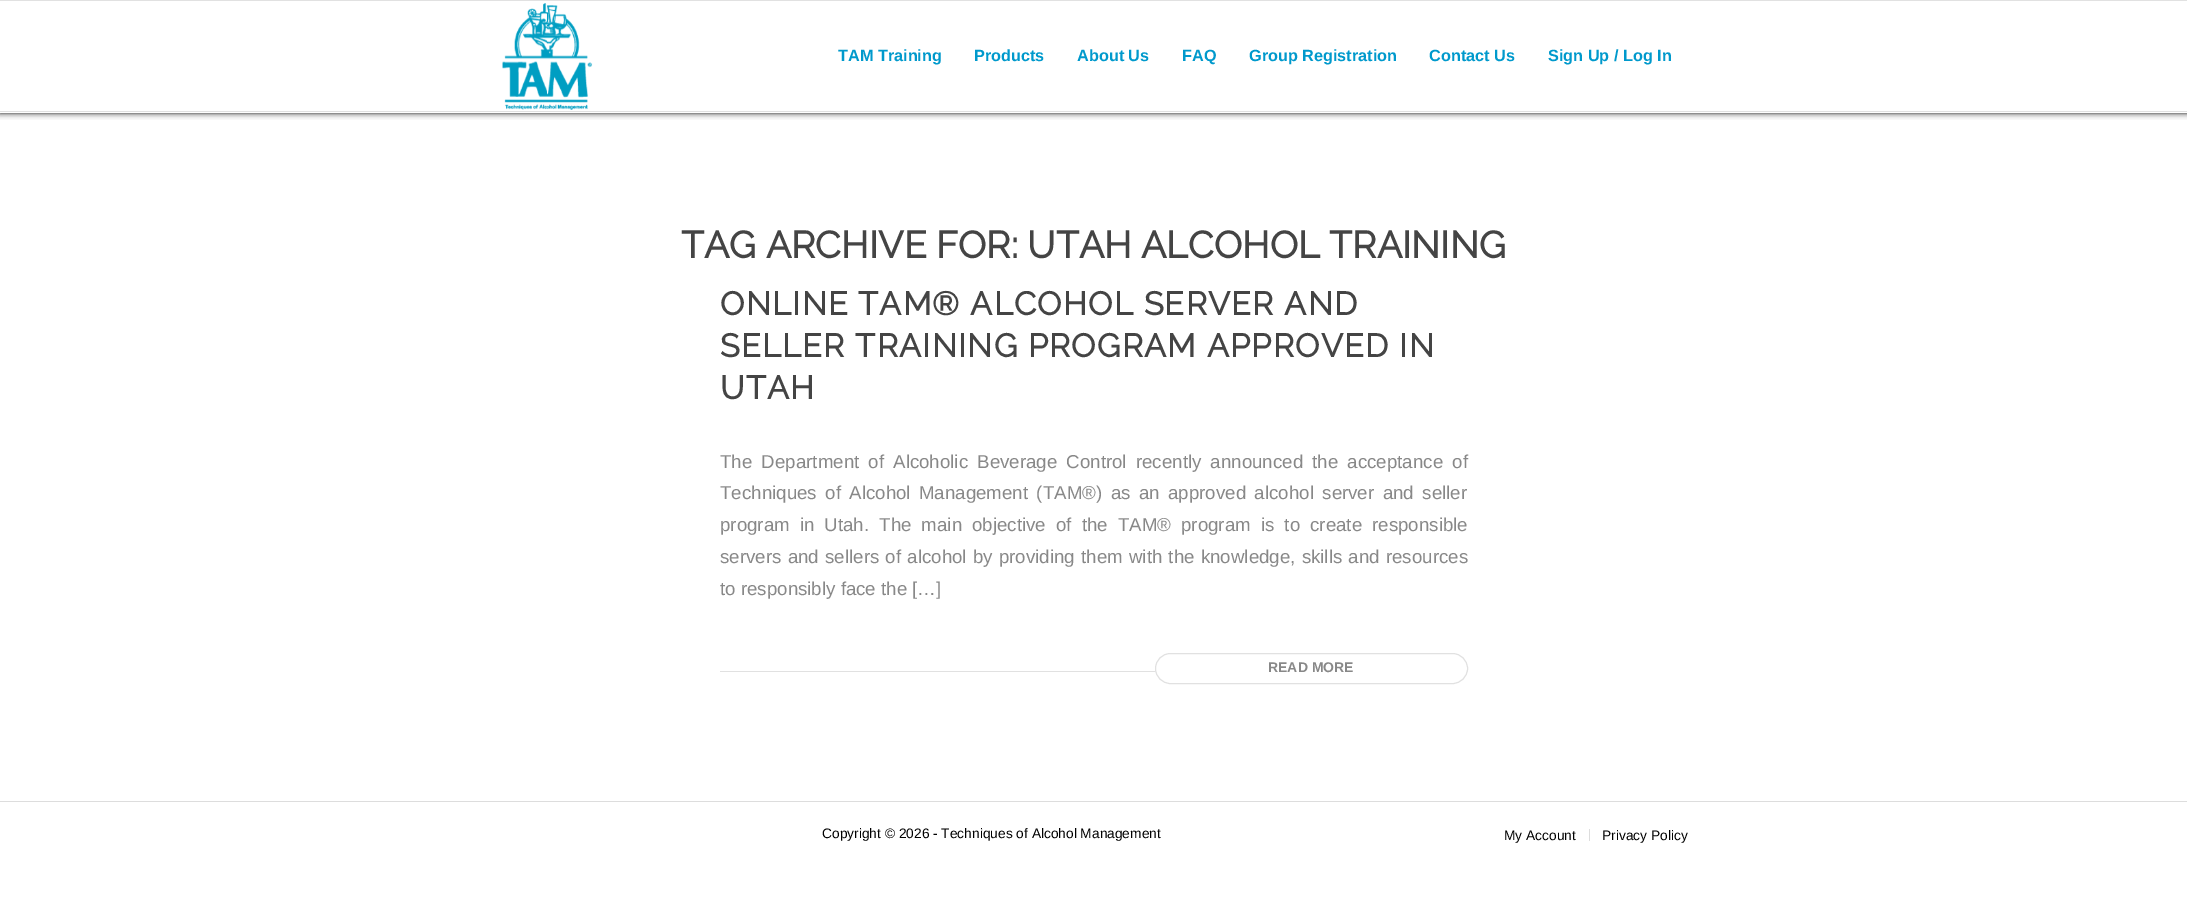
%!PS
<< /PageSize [2187 914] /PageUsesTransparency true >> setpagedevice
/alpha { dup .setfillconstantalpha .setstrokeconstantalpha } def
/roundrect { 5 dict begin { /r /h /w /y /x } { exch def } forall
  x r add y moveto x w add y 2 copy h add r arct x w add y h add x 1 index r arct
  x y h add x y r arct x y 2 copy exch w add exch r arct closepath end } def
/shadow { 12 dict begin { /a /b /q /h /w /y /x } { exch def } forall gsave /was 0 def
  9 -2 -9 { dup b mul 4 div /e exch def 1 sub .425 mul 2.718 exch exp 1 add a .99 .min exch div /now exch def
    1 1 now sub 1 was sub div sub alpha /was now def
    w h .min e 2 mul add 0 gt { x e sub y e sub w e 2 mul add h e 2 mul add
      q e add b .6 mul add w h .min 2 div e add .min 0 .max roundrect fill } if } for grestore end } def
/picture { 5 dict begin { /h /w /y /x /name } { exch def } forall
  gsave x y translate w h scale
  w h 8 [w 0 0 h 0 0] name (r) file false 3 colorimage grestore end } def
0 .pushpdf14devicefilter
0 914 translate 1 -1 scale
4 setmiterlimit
1 setgray
0 0 2187 914 rectfill
gsave
newpath 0 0 moveto 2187 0 lineto 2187 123 lineto 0 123 lineto closepath 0 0 moveto 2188 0 lineto 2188 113 lineto 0 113 lineto closepath eoclip newpath
0 setgray
0 0 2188 113 0 3 1 shadow
grestore
0.882 setgray
0 0 2187 1 rectfill
0 111 2187 1 rectfill
(img1.rgb) 502 3 91 107 picture
/LiberationSans-Bold [16.25 0 0 -16.25 0 0] selectfont
0 0.6 0.8 setrgbcolor
838 61 moveto (TAM Training) show
974 61 moveto (Products) show
1077 61 moveto (About Us) show
1182 61 moveto (FAQ) show
1249 61 moveto (Group Registration) show
1429 61 moveto (Contact Us) show
1548 61 moveto (Sign Up / Log In) show
/Raleway-Bold [37.5 0 0 -37.5 0 0] selectfont
0.267 setgray
681 258 moveto (TAG ARCHIVE FOR: UTAH ALCOHOL TRAINING) show
/Raleway-Bold [32.5 0 0 -32.5 0 0] selectfont
720 315 moveto 1.25 0 (ONLINE TAM® ALCOHOL SERVER AND) ashow
720 357 moveto 1.25 0 (SELLER TRAINING PROGRAM APPROVED IN) ashow
720 399 moveto 1.25 0 (UTAH) ashow
/LiberationSans-Regular [18.7 0 0 -18.7 0 0] selectfont
0.533 setgray
720 468 moveto 4 0 32 (The Department of Alcoholic Beverage Control recently announced the acceptance of) widthshow
720 499 moveto 3.25 0 32 (Techniques of Alcohol Management \(TAM®\) as an approved alcohol server and seller) widthshow
720 531 moveto 4.9 0 32 (program in Utah. The main objective of the TAM® program is to create responsible) widthshow
720 563 moveto 1.1 0 32 (servers and sellers of alcohol by providing them with the knowledge, skills and resources) widthshow
720 595 moveto (to responsibly face the […]) show
0.882 setgray
720 671 748 1 rectfill
1 setgray
1155.5 653.5 312 30 15 roundrect gsave fill grestore
0.882 setgray
stroke
/LiberationSans-Bold [14 0 0 -14 0 0] selectfont
0.533 setgray
1268 672 moveto (READ MORE) show
0.867 setgray
0 801 2187 1 rectfill
/LiberationSans-Regular [13.75 0 0 -13.75 0 0] selectfont
0 setgray
822 838 moveto (Copyright © 2026 - Techniques of Alcohol Management) show
1504 840 moveto (My Account) show
0.867 setgray
1589 829 1 12 rectfill
0 setgray
1602 840 moveto (Privacy Policy) show
.poppdf14devicefilter showpage
